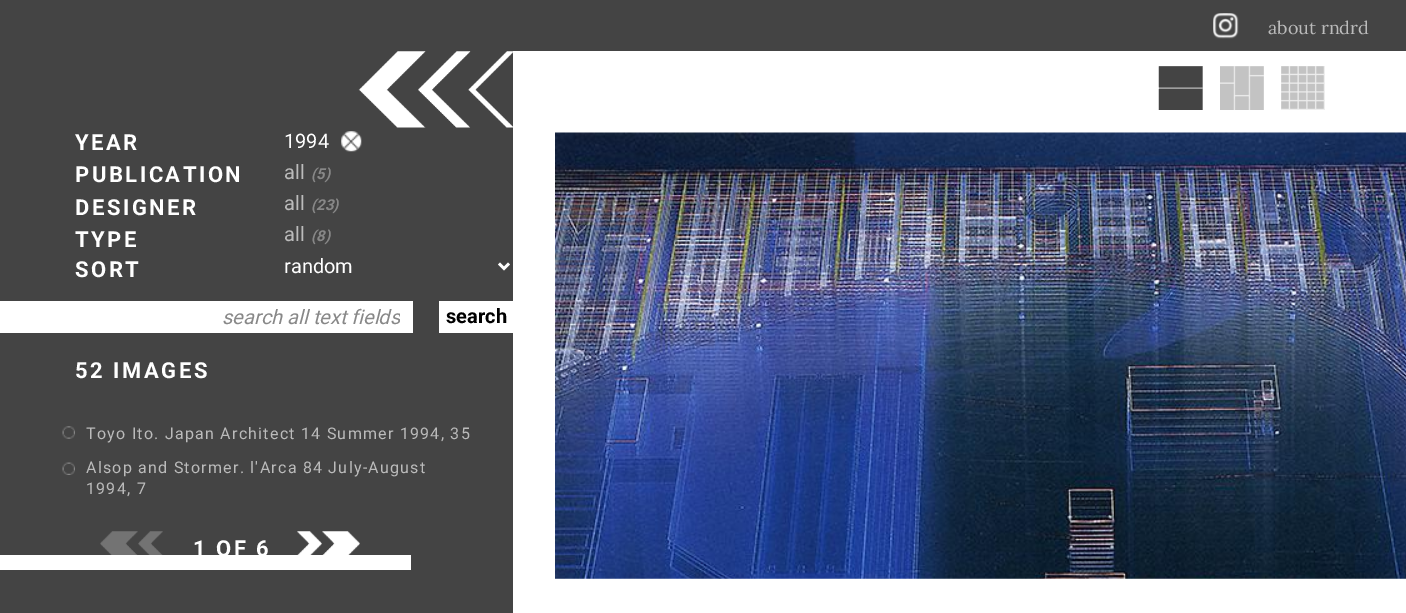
%!PS
<< /PageSize [1406 613] >> setpagedevice
/picture { 5 dict begin { /h /w /y /x /name } { exch def } forall
  gsave x y translate w h scale
  w h 8 [w 0 0 h 0 0] name (r) file false 3 colorimage grestore end } def
0 613 translate 1 -1 scale
4 setmiterlimit
0.267 setgray
0 0 1406 613 rectfill
(img1.rgb) 1213 13 26 26 picture
/Lora-Regular [18 0 0 -18 0 0] selectfont
0.733 setgray
1268 34 moveto (about rndrd) show
/Roboto-Bold [22 0 0 -22 0 0] selectfont
1 setgray
75 150 moveto 2.5 0 (YEAR) ashow
75 182 moveto 2.5 0 (PUBLICATION) ashow
75 215 moveto 2.5 0 (DESIGNER) ashow
75 247 moveto 2.5 0 (TYPE) ashow
75 277 moveto 2.5 0 (SORT) ashow
/Roboto-Regular [20 0 0 -20 0 0] selectfont
284 148 moveto (1994) show
(img2.rgb) 341 131 21 21 picture
0.733 setgray
284 179 moveto (all) show
/Roboto-BoldItalic [15 0 0 -15 0 0] selectfont
0.533 setgray
311 179 moveto (\(5\)) show
/Roboto-Regular [20 0 0 -20 0 0] selectfont
0.733 setgray
284 210 moveto (all) show
/Roboto-BoldItalic [15 0 0 -15 0 0] selectfont
0.533 setgray
311 210 moveto (\(23\)) show
/Roboto-Regular [20 0 0 -20 0 0] selectfont
0.733 setgray
284 241 moveto (all) show
/Roboto-BoldItalic [15 0 0 -15 0 0] selectfont
0.533 setgray
311 241 moveto (\(8\)) show
1 setgray
2.5 setlinewidth
newpath 499 263.5 moveto 504 268.5 lineto 509 263.5 lineto stroke
/Roboto-Regular [20 0 0 -20 0 0] selectfont
284 273 moveto (random) show
0 301 413 32 rectfill
gsave
75 305 325 24 rectclip
/Roboto-Italic [20 0 0 -20 0 0] selectfont
0.533 setgray
222 324 moveto (search all text fields) show
grestore
439 301 74 32 rectfill
/Roboto-Bold [20 0 0 -20 0 0] selectfont
0 setgray
446 323 moveto (search) show
/Roboto-Bold [22 0 0 -22 0 0] selectfont
1 setgray
75 378 moveto 2.5 0 (52 IMAGES) ashow
(img3.rgb) 62 426 13 13 picture
/Roboto-Regular [16 0 0 -16 0 0] selectfont
0.733 setgray
86 439 moveto 1.25 0 (Toyo Ito. Japan Architect 14 Summer 1994, 35) ashow
(img4.rgb) 62 462 13 13 picture
86 473 moveto 1.25 0 (Alsop and Stormer. l'Arca 84 July-August) ashow
86 494 moveto 1.25 0 (1994, 7) ashow
(img5.rgb) 100 531 63 24 picture
1 setgray
0 555 411 15 rectfill
/Roboto-Bold [22 0 0 -22 0 0] selectfont
193 556 moveto 2.5 0 (1 OF 6) ashow
(img6.rgb) 297 531 63 24 picture
513 51 893 562 rectfill
(img7.rgb) 358 51 155 77 picture
0.733 setgray
1159 66 44 44 rectfill
(img8.rgb) 1158 66 45 44 picture
0.933 setgray
1220 66 44 44 rectfill
(img9.rgb) 1220 66 44 44 picture
1281 66 44 44 rectfill
(img10.rgb) 1281 66 43 43 picture
(img11.rgb) 555 132 851 447 picture
showpage
